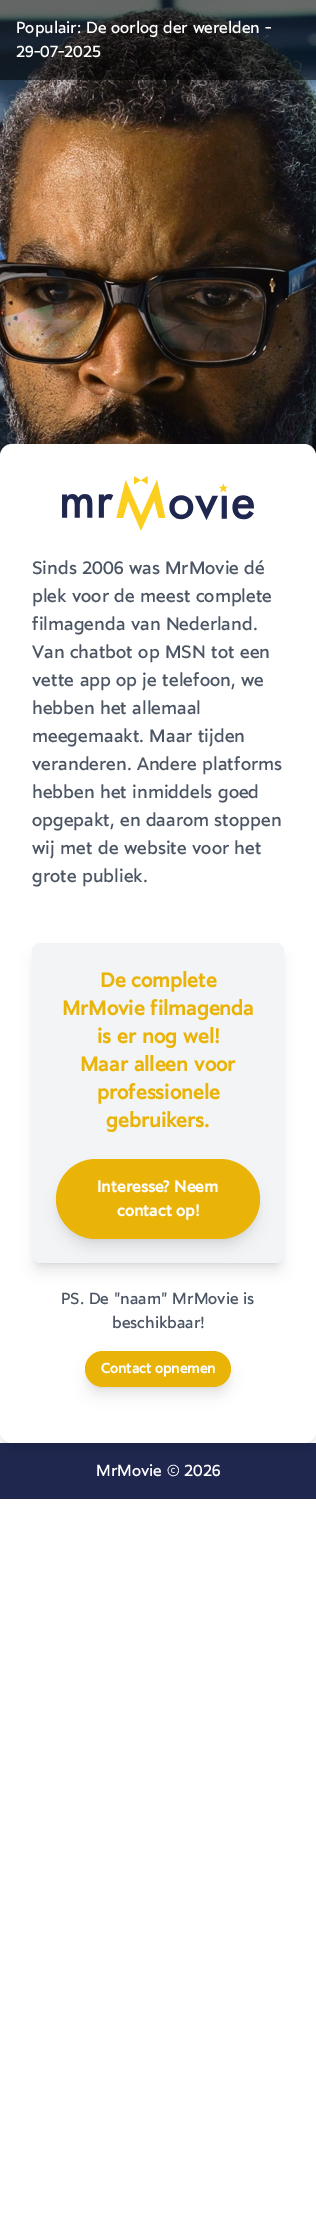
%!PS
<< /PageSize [316 2230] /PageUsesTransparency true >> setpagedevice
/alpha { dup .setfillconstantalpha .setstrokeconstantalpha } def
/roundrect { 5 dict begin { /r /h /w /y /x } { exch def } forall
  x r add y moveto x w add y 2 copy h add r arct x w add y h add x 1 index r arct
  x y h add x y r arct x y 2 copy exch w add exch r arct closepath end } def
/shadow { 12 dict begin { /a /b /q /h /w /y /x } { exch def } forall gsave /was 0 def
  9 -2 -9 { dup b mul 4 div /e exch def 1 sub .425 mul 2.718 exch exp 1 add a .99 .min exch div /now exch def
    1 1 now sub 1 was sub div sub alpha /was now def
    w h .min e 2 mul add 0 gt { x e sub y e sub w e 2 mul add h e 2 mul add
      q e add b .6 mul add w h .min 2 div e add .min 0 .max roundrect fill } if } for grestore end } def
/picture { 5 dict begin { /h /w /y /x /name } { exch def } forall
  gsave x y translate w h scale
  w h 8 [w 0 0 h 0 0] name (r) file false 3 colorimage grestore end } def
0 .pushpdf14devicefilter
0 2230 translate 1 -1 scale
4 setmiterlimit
1 setgray
0 0 316 2230 rectfill
(img1.rgb) 0 0 316 456 picture
0.5 alpha
0 setgray
0 0 316 80 rectfill
/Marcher-Regular [16 0 0 -16 0 0] selectfont
1 alpha
1 setgray
16 33 moveto (Populair: De oorlog der werelden -) show
16 57 moveto (29-07-2025) show
0.125 0.153 0.31 setrgbcolor
0 1443 316 56 rectfill
0 setgray
4 452 308 991 8 3 0.1 shadow
3 457 310 993 9 7.5 0.1 shadow
1 setgray
0 444 316 999 12 roundrect fill
(img2.rgb) 62 476 192 55 picture
/Marcher-Regular [18 0 0 -18 0 0] selectfont
0.294 0.333 0.388 setrgbcolor
32 574 moveto (Sinds 2006 was MrMovie dé) show
32 602 moveto (plek voor de meest complete) show
32 630 moveto (filmagenda van Nederland.) show
32 658 moveto (Van chatbot op MSN tot een) show
32 686 moveto (vette app op je telefoon, we) show
32 714 moveto (hebben het allemaal) show
32 742 moveto (meegemaakt. Maar tijden) show
32 770 moveto (veranderen. Andere platforms) show
32 798 moveto (hebben het inmiddels goed) show
32 826 moveto (opgepakt, en daarom stoppen) show
32 854 moveto (wij met de website voor het) show
32 882 moveto (grote publiek.) show
0 setgray
36 951 244 312 4 3 0.1 shadow
35 956 246 314 5 7.5 0.1 shadow
0.953 0.957 0.965 setrgbcolor
32 943 252 320 8 roundrect fill
/Marcher-Bold [20 0 0 -20 0 0] selectfont
0.918 0.702 0.031 setrgbcolor
100 987 moveto (De complete) show
62 1015 moveto (MrMovie filmagenda) show
97 1043 moveto (is er nog wel!) show
80 1071 moveto (Maar alleen voor) show
97 1099 moveto (professionele) show
106 1127 moveto (gebruikers.) show
0 setgray
60 1167 196 72 36 3 0.1 shadow
59 1172 198 74 37 7.5 0.1 shadow
0.918 0.702 0.031 setrgbcolor
56 1159 204 80 40 roundrect fill
/Marcher-Bold [16 0 0 -16 0 0] selectfont
1 setgray
97 1192 moveto (Interesse? Neem) show
117 1216 moveto (contact op!) show
/Marcher-Regular [16 0 0 -16 0 0] selectfont
0.294 0.333 0.388 setrgbcolor
61 1304 moveto (PS. De "naam" MrMovie is) show
112 1328 moveto (beschikbaar!) show
0 setgray
89 1359 138 28 14 3 0.1 shadow
88 1364 140 30 15 7.5 0.1 shadow
0.918 0.702 0.031 setrgbcolor
85 1351 146 36 18 roundrect fill
/Marcher-Bold [14 0 0 -14 0 0] selectfont
1 setgray
101 1373 moveto (Contact opnemen) show
/Marcher-Regular [16 0 0 -16 0 0] selectfont
96 1476 moveto (MrMovie © 2026) show
.poppdf14devicefilter showpage
